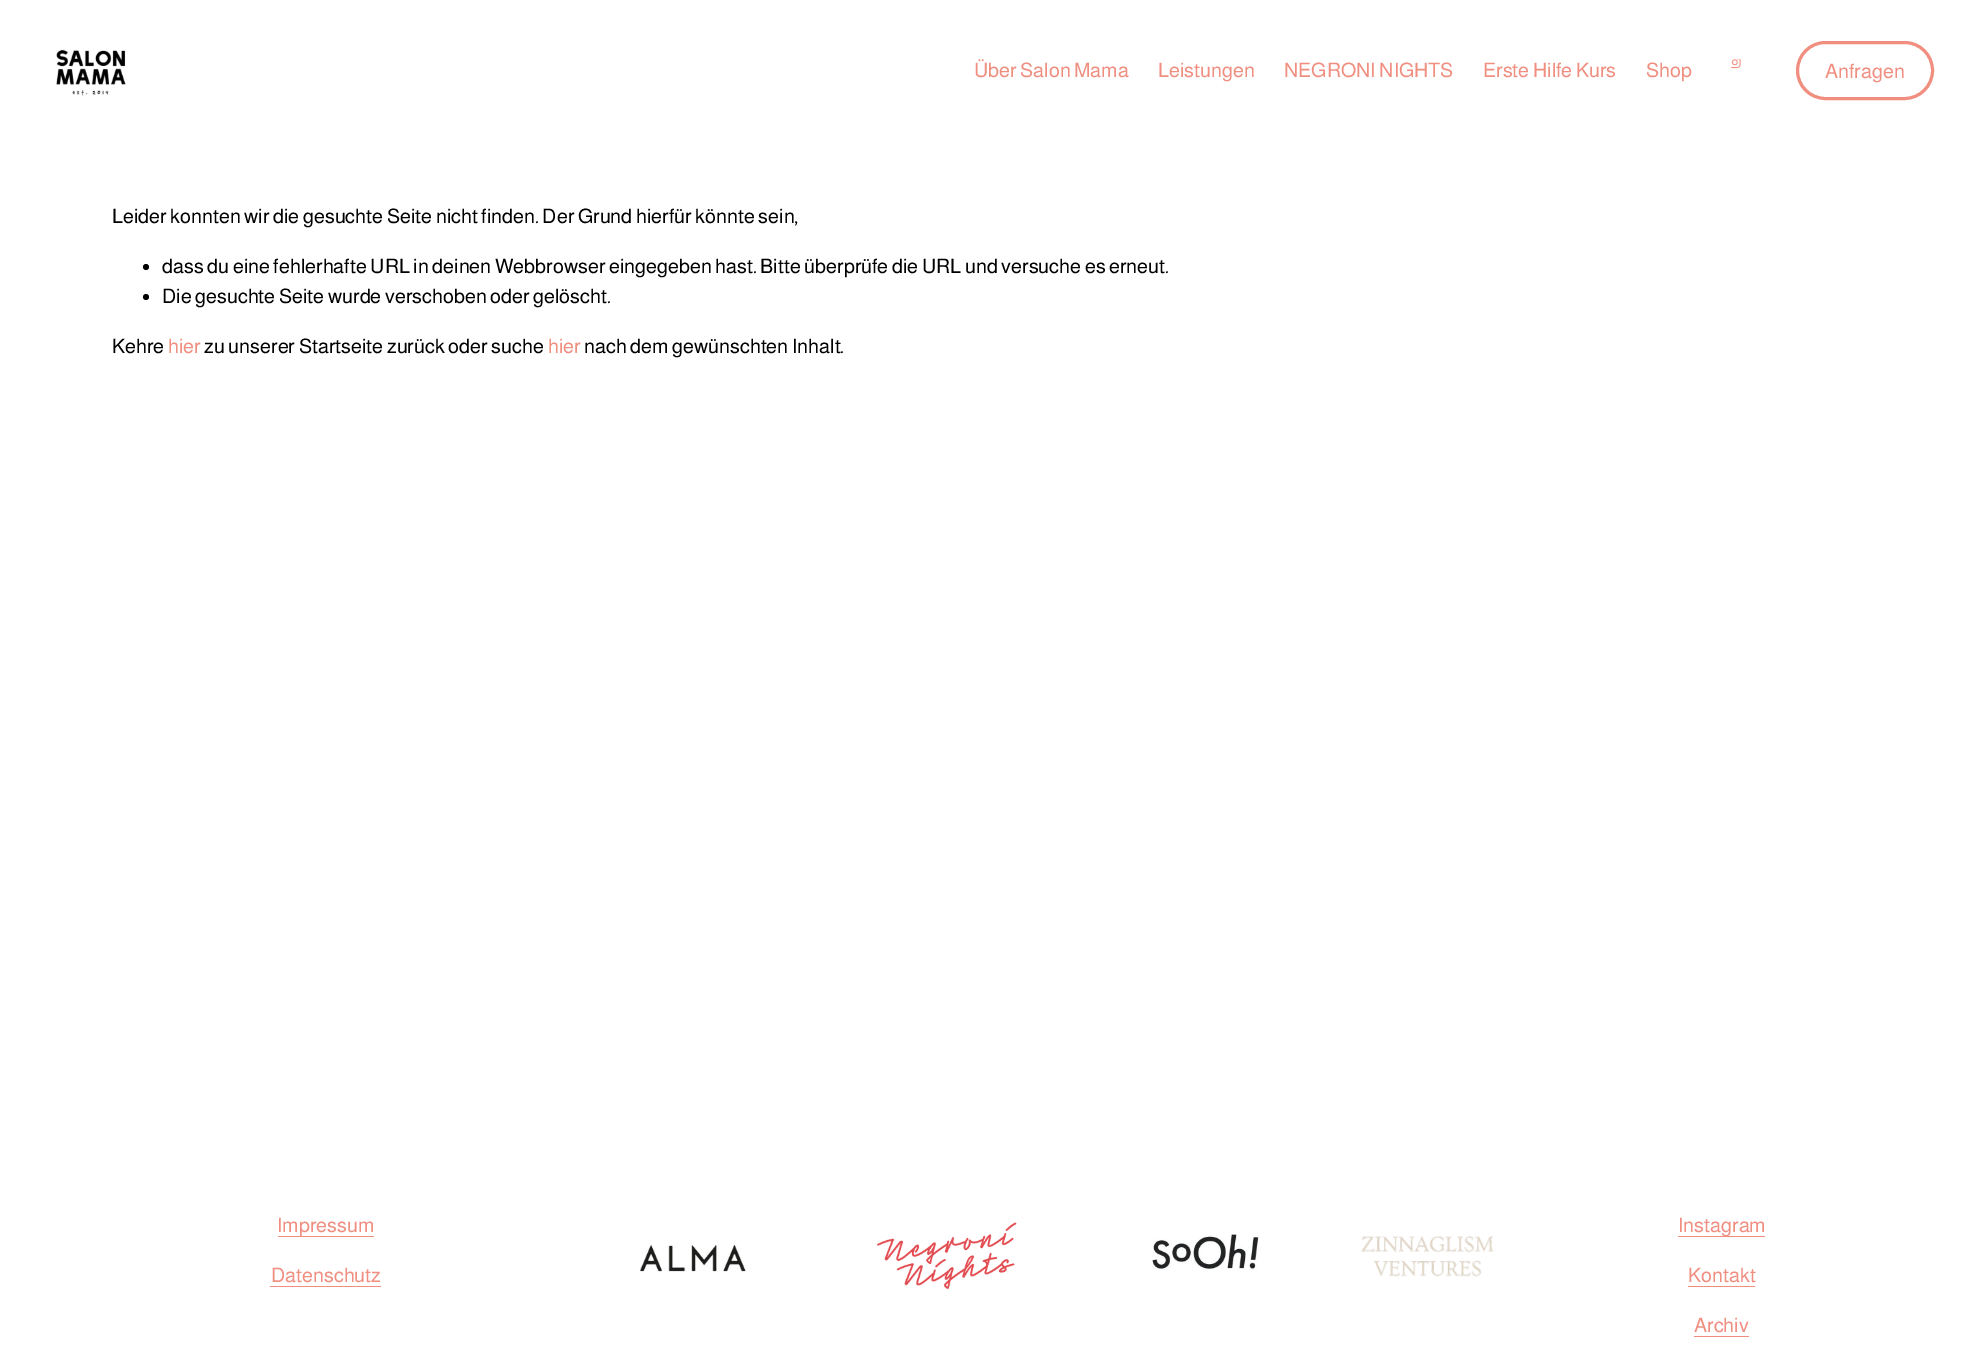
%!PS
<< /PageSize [1973 1371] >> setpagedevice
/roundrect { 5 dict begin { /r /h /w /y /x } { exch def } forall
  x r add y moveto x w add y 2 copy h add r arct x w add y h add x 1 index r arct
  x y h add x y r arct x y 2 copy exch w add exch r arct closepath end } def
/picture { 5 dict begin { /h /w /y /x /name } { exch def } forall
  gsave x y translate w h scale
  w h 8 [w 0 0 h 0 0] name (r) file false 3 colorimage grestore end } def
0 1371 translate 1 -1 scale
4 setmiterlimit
1 setgray
0 0 1973 1371 rectfill
(img1.rgb) 56 49 70 47 picture
/Almarai-Regular [20 0 0 -20 0 0] selectfont
0.941 0.557 0.502 setrgbcolor
974 77 moveto (Über Salon Mama) show
1158 77 moveto (Leistungen) show
1284 77 moveto (NEGRONI NIGHTS) show
1483 77 moveto (Erste Hilfe Kurs) show
1646 77 moveto (Shop) show
(img2.rgb) 1731 59 10 10 picture
3 setlinewidth
1797.5 42.5 135 56 28 roundrect stroke
1825 78 moveto (Anfragen) show
0 setgray
112 223 moveto (Leider konnten wir die gesuchte Seite nicht finden. Der Grund hierfür könnte sein,) show
newpath 146 267 3 0 360 arc closepath fill
162 273 moveto (dass du eine fehlerhafte URL in deinen Webbrowser eingegeben hast. Bitte überprüfe die URL und versuche es erneut.) show
newpath 146 297 3 0 360 arc closepath fill
162 303 moveto (Die gesuchte Seite wurde verschoben oder gelöscht.) show
112 353 moveto (Kehre) show
0.941 0.557 0.502 setrgbcolor
168 353 moveto (hier) show
0 setgray
204 353 moveto (zu unserer Startseite zurück oder suche) show
0.941 0.557 0.502 setrgbcolor
548 353 moveto (hier) show
0 setgray
584 353 moveto (nach dem gewünschten Inhalt.) show
0.941 0.557 0.502 setrgbcolor
278 1236 96 1 rectfill
277 1232 moveto (Impressum) show
271 1282 moveto (Datenschutz) show
270 1286 111 1 rectfill
(img3.rgb) 640 1244 106 28 picture
(img4.rgb) 877 1222 140 68 picture
(img5.rgb) 1152 1234 107 36 picture
(img6.rgb) 1361 1236 133 41 picture
1678 1236 87 1 rectfill
1678 1232 moveto (Instagram) show
1688 1282 moveto (Kontakt) show
1688 1286 67 1 rectfill
1694 1332 moveto (Archiv) show
1694 1336 55 1 rectfill
showpage
